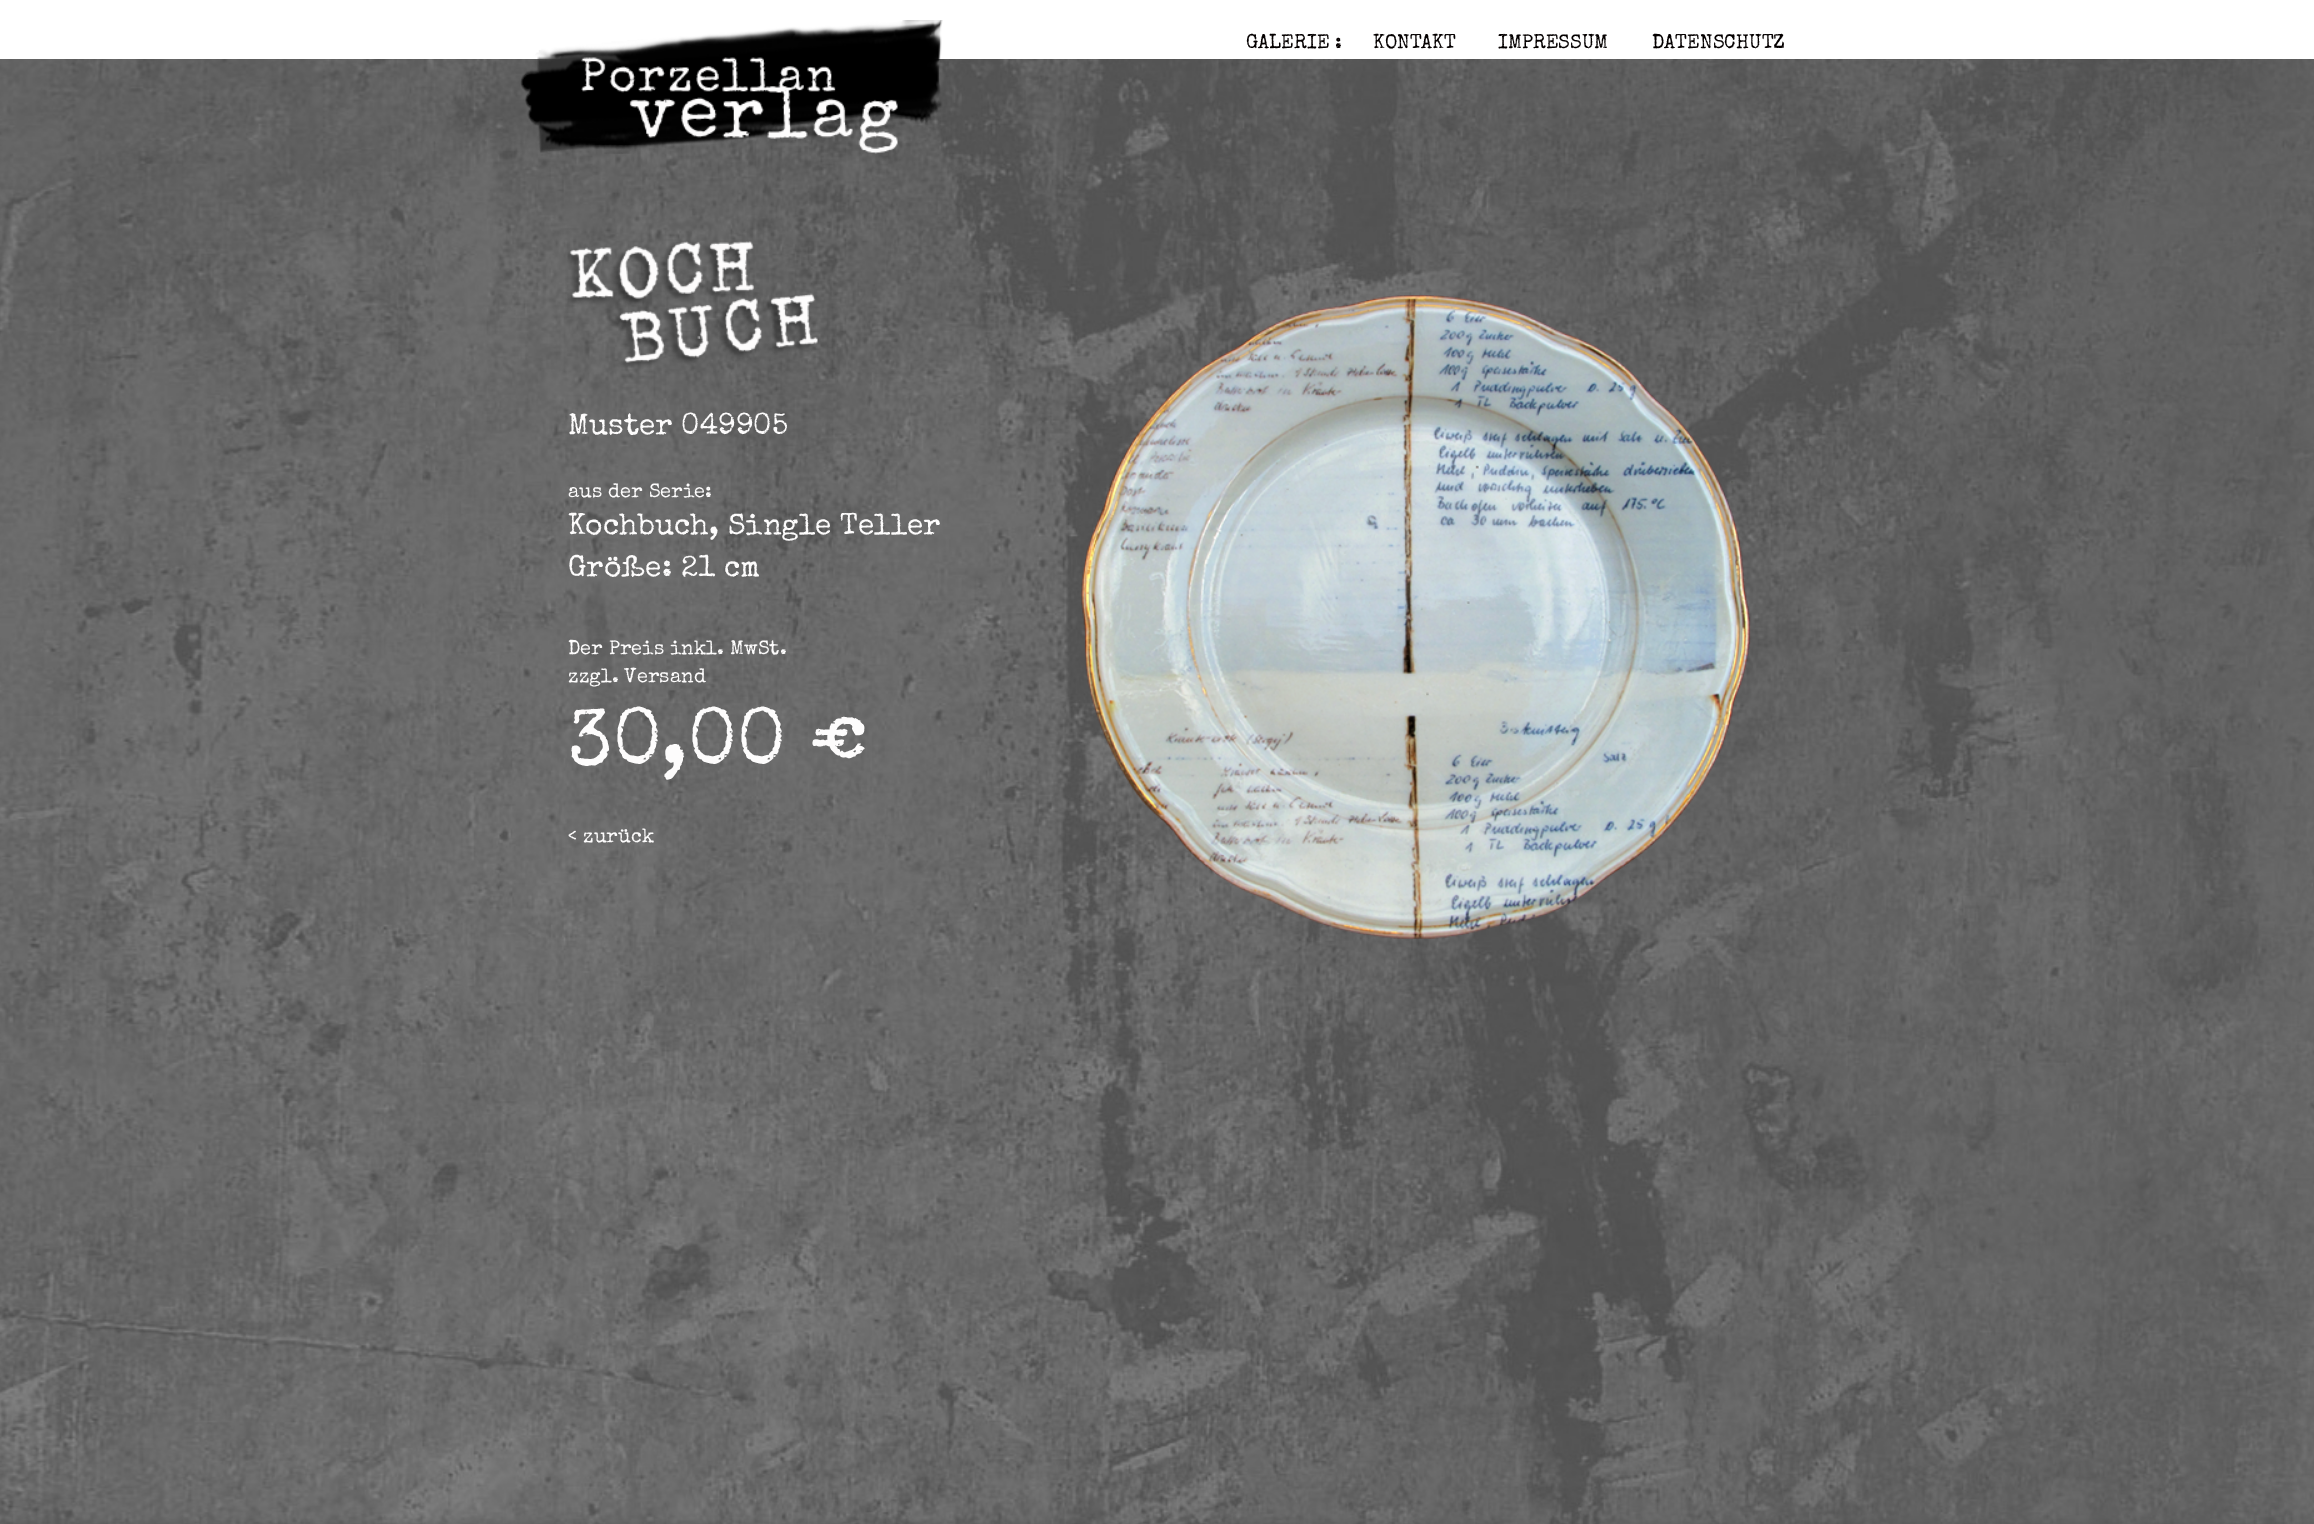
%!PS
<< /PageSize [2314 1524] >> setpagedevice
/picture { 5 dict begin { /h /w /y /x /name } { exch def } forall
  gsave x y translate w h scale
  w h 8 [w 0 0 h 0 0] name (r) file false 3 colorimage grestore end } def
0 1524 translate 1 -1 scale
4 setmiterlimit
1 setgray
0 0 2314 1524 rectfill
(img2.rgb) 0 59 2314 1465 picture
(img1.rgb) 520 20 423 134 picture
/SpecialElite-Regular [20 0 0 -20 0 0] selectfont
0.016 0 0 setrgbcolor
1246 48 moveto (GALERIE :) show
1373 48 moveto (KONTAKT) show
1498 48 moveto (IMPRESSUM) show
1652 48 moveto (DATENSCHUTZ) show
(img3.rgb) 567 241 251 127 picture
/SpecialElite-Regular [30 0 0 -30 0 0] selectfont
0.992 0.988 0.988 setrgbcolor
568 434 moveto (Muster 049905) show
/SpecialElite-Regular [20 0 0 -20 0 0] selectfont
568 497 moveto (aus der Serie:) show
/SpecialElite-Regular [30 0 0 -30 0 0] selectfont
568 534 moveto (Kochbuch, Single Teller) show
568 576 moveto (Größe: 21 cm) show
/SpecialElite-Regular [20 0 0 -20 0 0] selectfont
568 654 moveto (Der Preis inkl. MwSt.) show
568 682 moveto (zzgl. Versand) show
/SpecialElite-Regular [80 0 0 -80 0 0] selectfont
568 764 moveto (30,00 €) show
/SpecialElite-Regular [20 0 0 -20 0 0] selectfont
568 842 moveto (< zurück) show
(img4.rgb) 1071 295 680 644 picture
showpage
